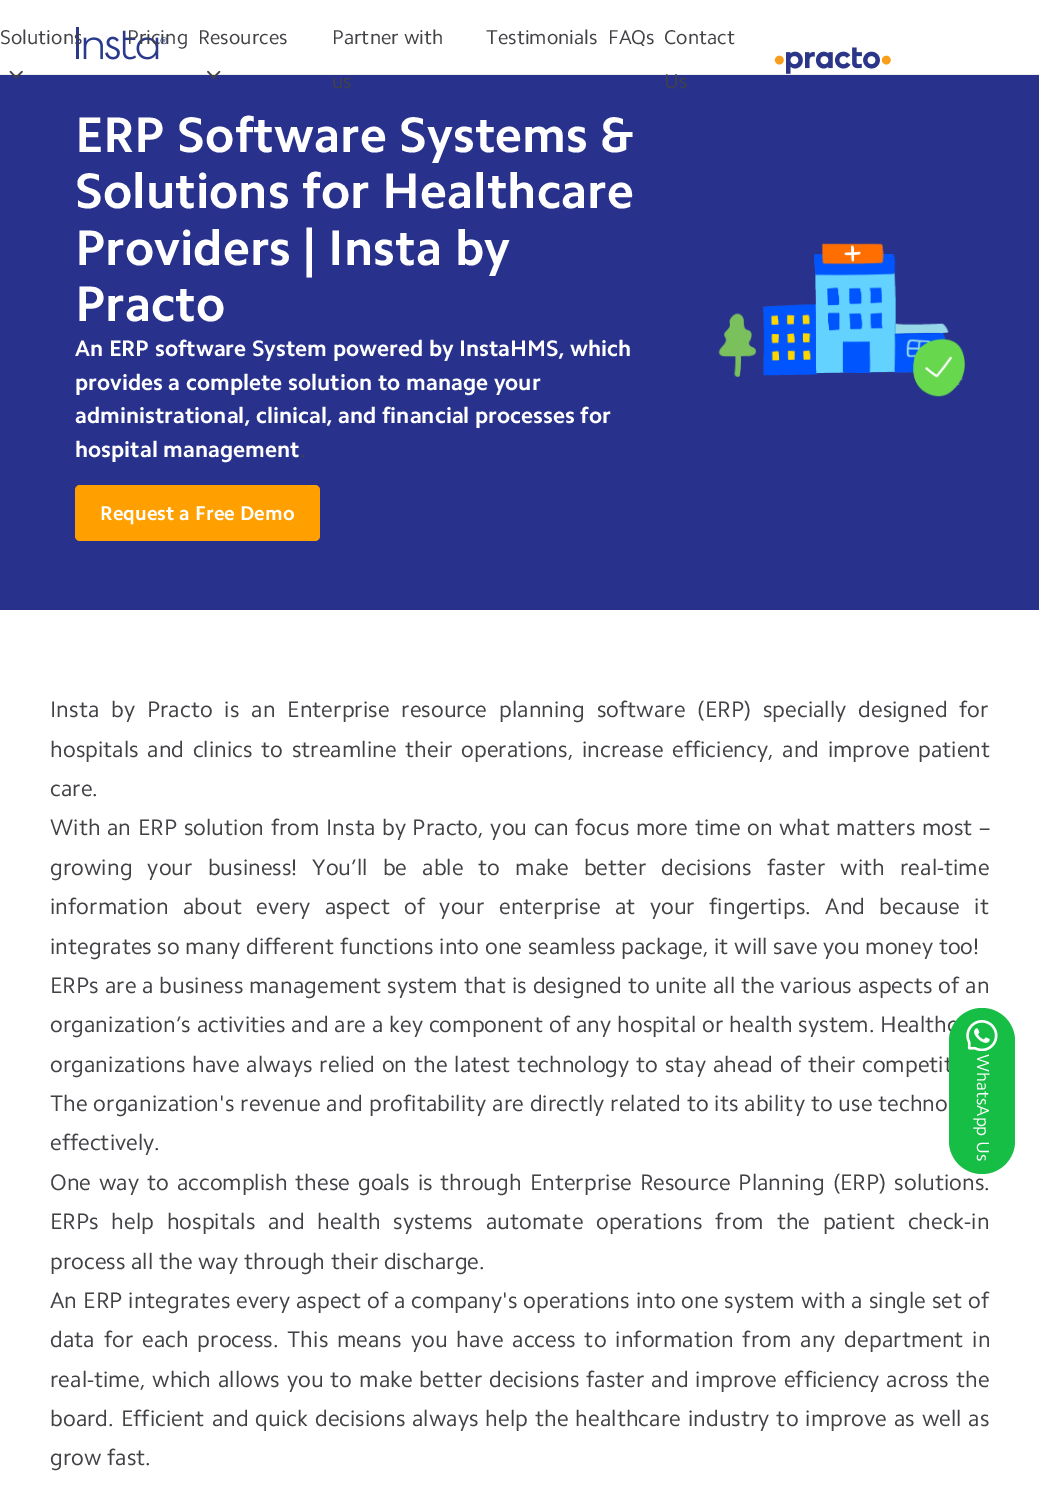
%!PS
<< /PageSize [1039 1498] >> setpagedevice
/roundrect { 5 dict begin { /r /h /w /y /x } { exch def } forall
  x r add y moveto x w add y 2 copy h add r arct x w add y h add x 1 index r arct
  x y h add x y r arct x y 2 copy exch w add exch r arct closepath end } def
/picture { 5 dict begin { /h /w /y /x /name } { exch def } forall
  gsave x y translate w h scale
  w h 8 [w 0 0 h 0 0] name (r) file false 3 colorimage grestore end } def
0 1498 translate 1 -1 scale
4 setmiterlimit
1 setgray
0 0 1039 1498 rectfill
0.925 setgray
0 74 1039 1 rectfill
(img1.rgb) 76 27 92 33 picture
/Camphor-Regular [20 0 0 -20 0 0] selectfont
0.255 0.255 0.275 setrgbcolor
0 44 moveto (Solutions) show
0.157 0.196 0.549 setrgbcolor
0 75 1039 535 rectfill
(img2.rgb) 9 70 14 9 picture
0.255 0.255 0.275 setrgbcolor
127 44 moveto (Pricing) show
198 44 moveto (Resources) show
(img3.rgb) 207 70 14 9 picture
332 44 moveto (Partner with) show
332 88 moveto (us) show
486 44 moveto (Testimonials) show
608 44 moveto (FAQs) show
664 44 moveto (Contact) show
664 88 moveto (Us) show
(img4.rgb) 774 47 117 27 picture
/Camphor-Bold [50 0 0 -50 0 0] selectfont
1 setgray
75 152 moveto (ERP Software Systems &) show
75 208 moveto (Solutions for Healthcare) show
75 265 moveto (Providers | Insta by) show
75 321 moveto (Practo) show
/Camphor-Bold [22.5 0 0 -22.5 0 0] selectfont
75 356 moveto (An ERP software System powered by InstaHMS, which) show
75 390 moveto (provides a complete solution to manage your) show
75 423 moveto (administrational, clinical, and financial processes for) show
75 457 moveto (hospital management) show
/Camphor-Regular [22.5 0 0 -22.5 0 0] selectfont
0.255 0.255 0.275 setrgbcolor
300 457 moveto (.) show
1 0.627 0 setrgbcolor
75 485 245 56 5 roundrect fill
/Camphor-Bold [20 0 0 -20 0 0] selectfont
1 setgray
100 520 moveto (Request a Free Demo) show
(img5.rgb) 718 243 247 154 picture
/Camphor-Regular [22.5 0 0 -22.5 0 0] selectfont
0.255 0.255 0.275 setrgbcolor
50 717 moveto 6.25 0 32 (Insta by Practo is an Enterprise resource planning software \(ERP\) specially designed for) widthshow
50 757 moveto 3 0 32 (hospitals and clinics to streamline their operations, increase efficiency, and improve patient) widthshow
50 796 moveto (care.) show
50 835 moveto 1 0 32 (With an ERP solution from Insta by Practo, you can focus more time on what matters most –) widthshow
50 875 moveto 9.4 0 32 (growing your business! You’ll be able to make better decisions faster with real-time) widthshow
50 914 moveto 8.75 0 32 (information about every aspect of your enterprise at your fingertips. And because it) widthshow
50 954 moveto (integrates so many different functions into one seamless package, it will save you money too!) show
50 993 moveto 0.25 0 32 (ERPs are a business management system that is designed to unite all the various aspects of an) widthshow
50 1032 moveto 0.25 0 32 (organization’s activities and are a key component of any hospital or health system. Healthc) widthshow
50 1072 moveto 1.25 0 32 (organizations have always relied on the latest technology to stay ahead of their competit) widthshow
50 1111 moveto 0.25 0 32 (The organization's revenue and profitability are directly related to its ability to use techno) widthshow
50 1150 moveto (effectively.) show
50 1190 moveto 2.25 0 32 (One way to accomplish these goals is through Enterprise Resource Planning \(ERP\) solutions.) widthshow
50 1229 moveto 7 0 32 (ERPs help hospitals and health systems automate operations from the patient check-in) widthshow
50 1269 moveto (process all the way through their discharge.) show
50 1308 moveto 0.25 0 32 (An ERP integrates every aspect of a company's operations into one system with a single set of) widthshow
50 1347 moveto 3.25 0 32 (data for each process. This means you have access to information from any department in) widthshow
50 1387 moveto 1.25 0 32 (real-time, which allows you to make better decisions faster and improve efficiency across the) widthshow
50 1426 moveto 1.3 0 32 (board. Efficient and quick decisions always help the healthcare industry to improve as well as) widthshow
50 1465 moveto (grow fast.) show
0.086 0.745 0.271 setrgbcolor
949 1008 66 166 33 roundrect fill
(img6.rgb) 966 1020 32 31 picture
/Camphor-Regular [17.5 0 0 -17.5 0 0] selectfont
1 setgray
gsave 977 1054 translate 90 rotate 0 0 moveto (WhatsApp Us) show grestore
showpage
